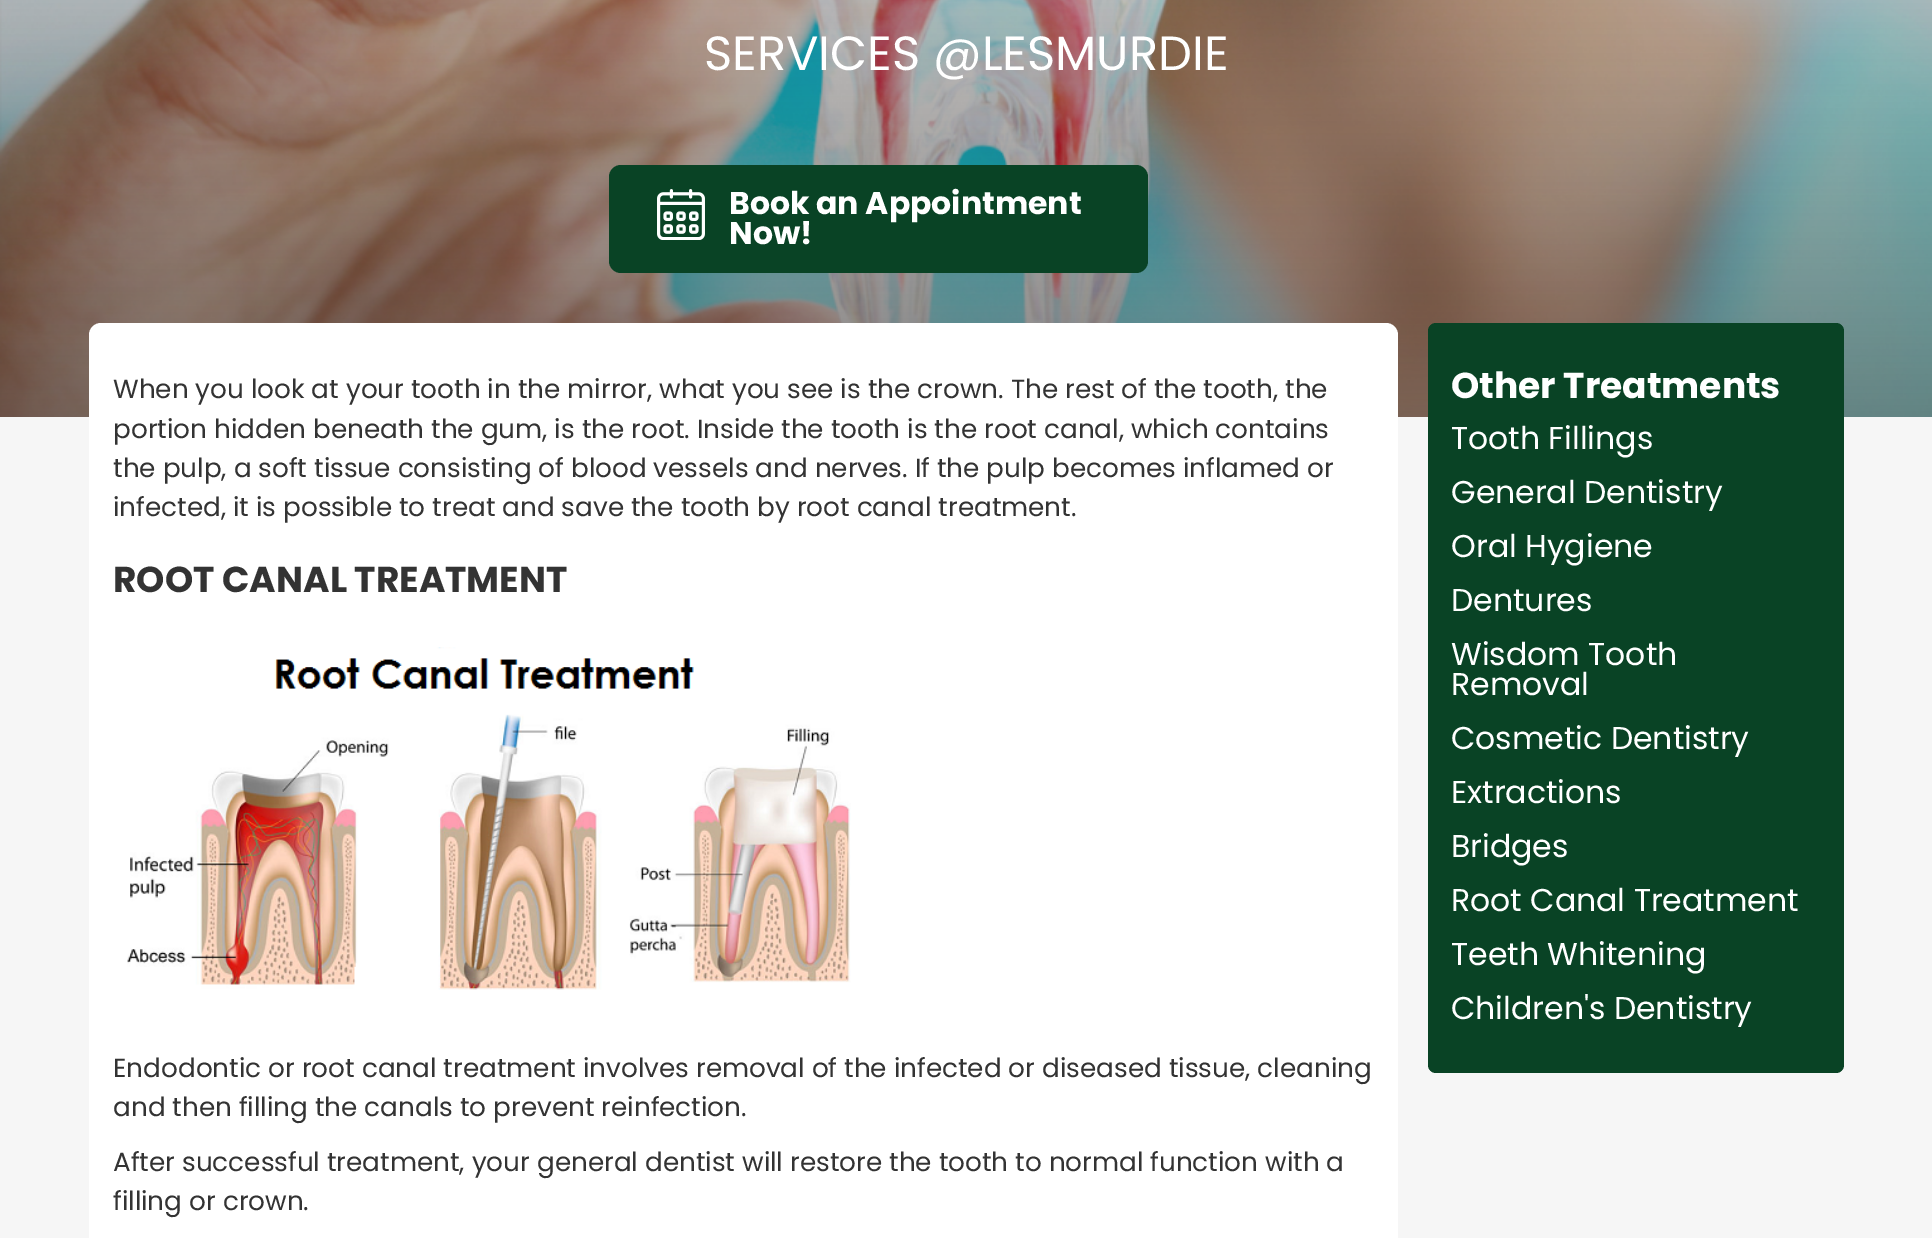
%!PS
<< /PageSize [1932 1238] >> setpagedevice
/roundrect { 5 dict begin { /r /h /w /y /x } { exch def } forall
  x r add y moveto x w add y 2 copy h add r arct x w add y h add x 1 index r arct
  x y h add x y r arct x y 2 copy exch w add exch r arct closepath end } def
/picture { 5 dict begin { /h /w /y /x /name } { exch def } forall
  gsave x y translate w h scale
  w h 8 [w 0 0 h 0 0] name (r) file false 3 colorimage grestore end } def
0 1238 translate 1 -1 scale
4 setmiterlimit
0.965 setgray
0 0 1932 1238 rectfill
(img1.rgb) 0 0 1932 417 picture
/Poppins-Regular [48 0 0 -48 0 0] selectfont
1 setgray
704 70 moveto (SERVICES @LESMURDIE) show
0.035 0.263 0.145 setrgbcolor
609 165 539 108 12 roundrect fill
(img2.rgb) 657 189 48 51 picture
/Poppins-Bold [31.5 0 0 -31.5 0 0] selectfont
1 setgray
729 214 moveto (Book an Appointment) show
729 244 moveto (Now!) show
89 323 1309 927 12 roundrect fill
/Poppins-Regular [26.25 0 0 -26.25 0 0] selectfont
0.2 setgray
113 398 moveto (When you look at your tooth in the mirror, what you see is the crown. The rest of the tooth, the) show
113 438 moveto (portion hidden beneath the gum, is the root. Inside the tooth is the root canal, which contains) show
113 477 moveto (the pulp, a soft tissue consisting of blood vessels and nerves. If the pulp becomes inflamed or) show
113 516 moveto (infected, it is possible to treat and save the tooth by root canal treatment.) show
/Poppins-Bold [36 0 0 -36 0 0] selectfont
113 592 moveto (ROOT CANAL TREATMENT) show
(img3.rgb) 127 647 724 343 picture
/Poppins-Regular [26.25 0 0 -26.25 0 0] selectfont
113 1077 moveto (Endodontic or root canal treatment involves removal of the infected or diseased tissue, cleaning) show
113 1116 moveto (and then filling the canals to prevent reinfection.) show
113 1171 moveto (After successful treatment, your general dentist will restore the tooth to normal function with a) show
113 1210 moveto (filling or crown.) show
0.035 0.263 0.145 setrgbcolor
1428 323 416 750 8 roundrect fill
/Poppins-Bold [36 0 0 -36 0 0] selectfont
1 setgray
1451 398 moveto (Other Treatments) show
/Poppins-Regular [31.5 0 0 -31.5 0 0] selectfont
1451 449 moveto (Tooth Fillings) show
1451 503 moveto (General Dentistry) show
1451 557 moveto (Oral Hygiene) show
1451 611 moveto (Dentures) show
1451 665 moveto (Wisdom Tooth) show
1451 695 moveto (Removal) show
1451 749 moveto (Cosmetic Dentistry) show
1451 803 moveto (Extractions) show
1451 857 moveto (Bridges) show
1451 911 moveto (Root Canal Treatment) show
1451 965 moveto (Teeth Whitening) show
1451 1019 moveto (Children's Dentistry) show
showpage
